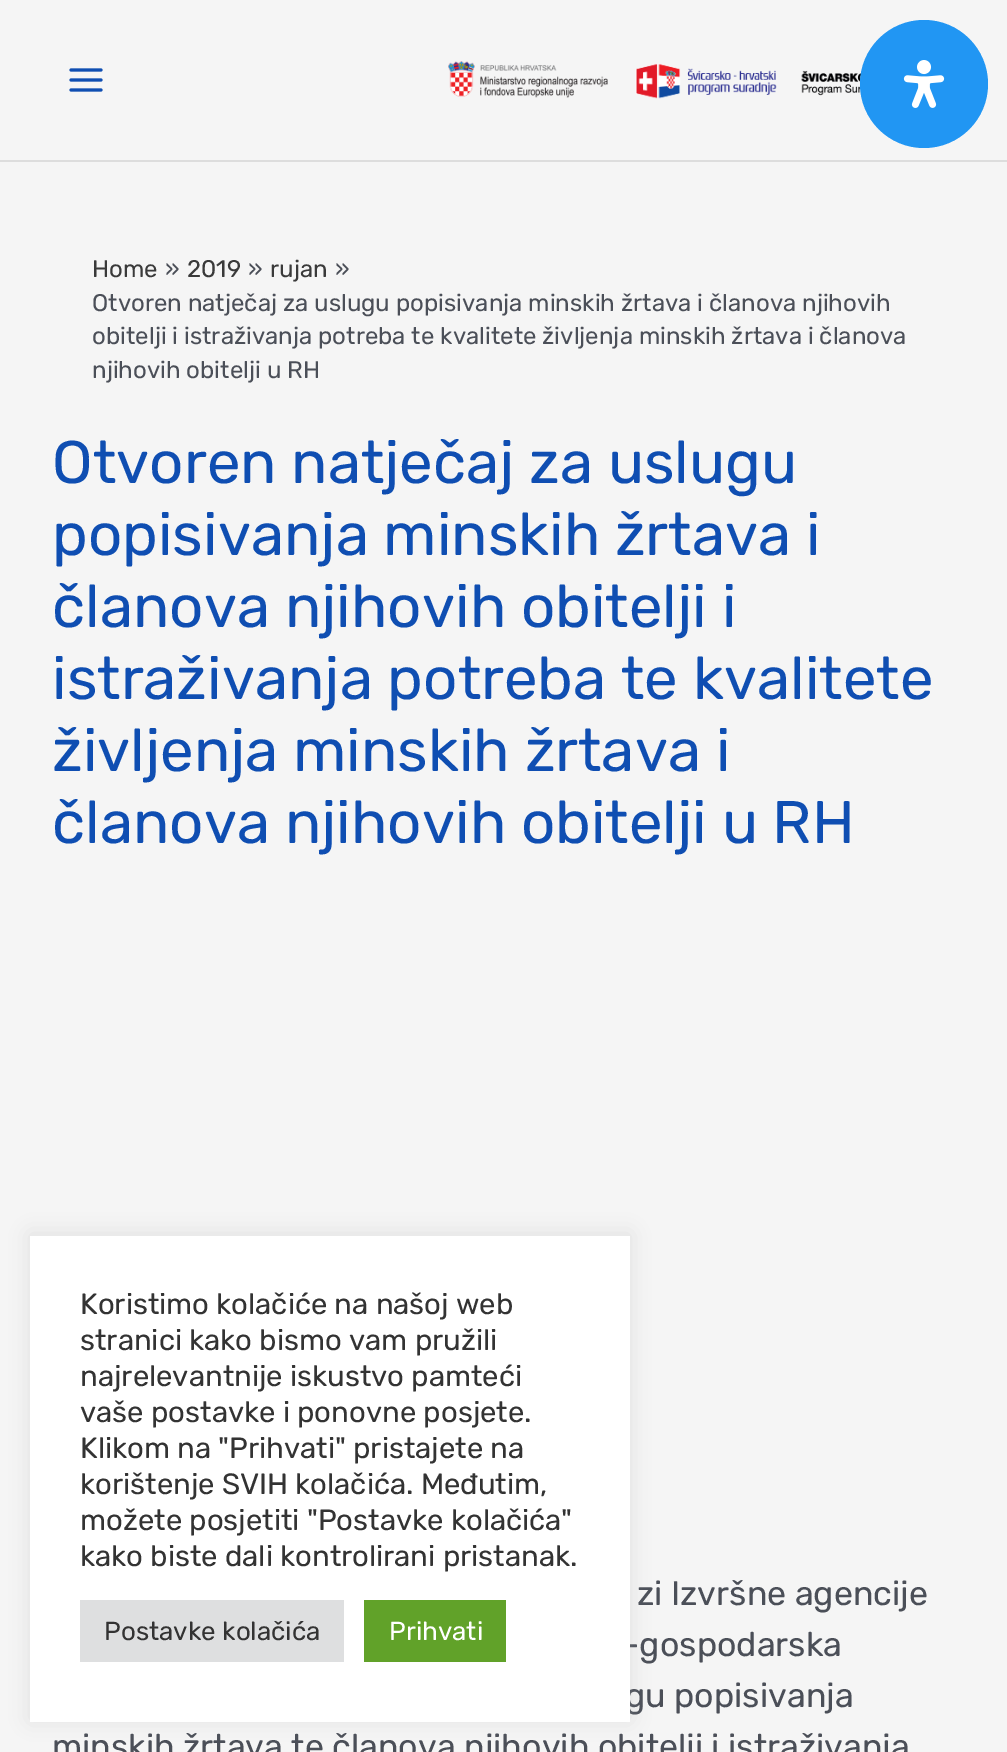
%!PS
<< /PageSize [1007 1752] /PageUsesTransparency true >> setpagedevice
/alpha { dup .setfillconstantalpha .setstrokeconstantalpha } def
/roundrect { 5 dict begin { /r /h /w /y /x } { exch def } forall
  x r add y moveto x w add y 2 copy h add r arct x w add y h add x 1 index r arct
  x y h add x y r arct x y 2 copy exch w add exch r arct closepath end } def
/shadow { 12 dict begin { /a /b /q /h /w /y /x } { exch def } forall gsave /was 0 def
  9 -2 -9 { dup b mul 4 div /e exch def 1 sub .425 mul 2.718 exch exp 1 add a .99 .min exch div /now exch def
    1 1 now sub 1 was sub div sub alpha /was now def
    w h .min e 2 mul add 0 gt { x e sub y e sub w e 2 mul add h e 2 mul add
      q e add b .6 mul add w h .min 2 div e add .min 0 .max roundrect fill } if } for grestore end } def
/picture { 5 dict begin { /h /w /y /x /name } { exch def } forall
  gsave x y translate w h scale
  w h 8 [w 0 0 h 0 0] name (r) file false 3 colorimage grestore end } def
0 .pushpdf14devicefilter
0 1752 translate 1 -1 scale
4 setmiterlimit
0.961 setgray
0 0 1007 1752 rectfill
(img3.rgb) 448 61 413 38 picture
0.129 0.588 0.953 setrgbcolor
newpath 924 84 64 0 360 arc closepath fill
(img1.rgb) 903 60 42 48 picture
0.867 setgray
0 160 1007 2 rectfill
(img2.rgb) 69 68 34 24 picture
/Rubik-Regular [24 0 0 -24 0 0] selectfont
0.227 setgray
92 277 moveto (Home) show
0.294 0.31 0.345 setrgbcolor
165 277 moveto (») show
0.227 setgray
187 277 moveto (2019) show
0.294 0.31 0.345 setrgbcolor
248 277 moveto (») show
0.227 setgray
270 277 moveto (rujan) show
0.294 0.31 0.345 setrgbcolor
335 277 moveto (») show
92 311 moveto (Otvoren natječaj za uslugu popisivanja minskih žrtava i članova njihovih) show
92 344 moveto (obitelji i istraživanja potreba te kvalitete življenja minskih žrtava i članova) show
92 378 moveto (njihovih obitelji u RH) show
/Rubik-Regular [60 0 0 -60 0 0] selectfont
0.059 0.306 0.698 setrgbcolor
52 483 moveto (Otvoren natječaj za uslugu) show
52 555 moveto (popisivanja minskih žrtava i) show
52 627 moveto (članova njihovih obitelji i) show
52 699 moveto (istraživanja potreba te kvalitete) show
52 771 moveto (življenja minskih žrtava i) show
52 843 moveto (članova njihovih obitelji u RH) show
/Rubik-Regular [34 0 0 -34 0 0] selectfont
0.294 0.31 0.345 setrgbcolor
637 1605 moveto (zi Izvršne agencije) show
623 1656 moveto (-gospodarska) show
625 1707 moveto (gu popisivanja) show
52 1758 moveto (minskih žrtava te članova njihovih obitelji i istraživanja) show
0.675 0.671 0.671 setrgbcolor
30 1234 600 486 0 10 0.3 shadow
1 setgray
30 1236 600 486 rectfill
/Rubik-Regular [29.3 0 0 -29.3 0 0] selectfont
0.2 setgray
80 1314 moveto (Koristimo kolačiće na našoj web) show
80 1350 moveto (stranici kako bismo vam pružili) show
80 1386 moveto (najrelevantnije iskustvo pamteći) show
80 1422 moveto (vaše postavke i ponovne posjete.) show
80 1458 moveto (Klikom na "Prihvati" pristajete na) show
80 1494 moveto (korištenje SVIH kolačića. Međutim,) show
80 1530 moveto (možete posjetiti "Postavke kolačića") show
80 1566 moveto (kako biste dali kontrolirani pristanak.) show
0.871 0.875 0.878 setrgbcolor
80 1600 264 62 rectfill
/Rubik-Regular [26 0 0 -26 0 0] selectfont
0.2 setgray
104 1640 moveto (Postavke kolačića) show
0.38 0.635 0.161 setrgbcolor
364 1600 142 62 rectfill
1 setgray
389 1640 moveto (Prihvati) show
.poppdf14devicefilter showpage
